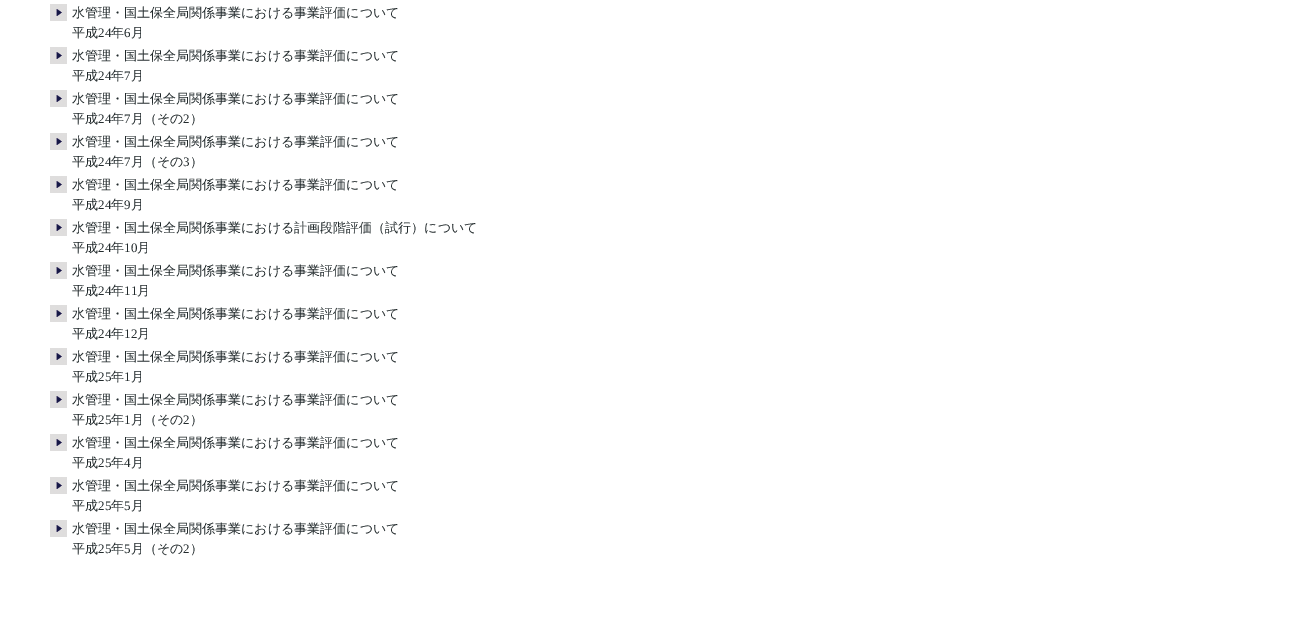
%!PS
<< /PageSize [1302 637] >> setpagedevice
/picture { 5 dict begin { /h /w /y /x /name } { exch def } forall
  gsave x y translate w h scale
  w h 8 [w 0 0 h 0 0] name (r) file false 3 colorimage grestore end } def
0 637 translate 1 -1 scale
4 setmiterlimit
1 setgray
0 0 1302 637 rectfill
(img1.rgb) 50 4 17 17 picture
/WenQuanYiZenHei-Medium [13 0 0 -13 0 0] selectfont
0.133 0.165 0.173 setrgbcolor
72 17 moveto (水管理・国土保全局関係事業における事業評価について) show
72 37 moveto (平成) show
/LiberationSerif-Regular [13 0 0 -13 0 0] selectfont
98 37 moveto (24) show
/WenQuanYiZenHei-Medium [13 0 0 -13 0 0] selectfont
111 37 moveto (年) show
/LiberationSerif-Regular [13 0 0 -13 0 0] selectfont
124 37 moveto (6) show
/WenQuanYiZenHei-Medium [13 0 0 -13 0 0] selectfont
131 37 moveto (月) show
(img1.rgb) 50 47 17 17 picture
72 60 moveto (水管理・国土保全局関係事業における事業評価について) show
72 80 moveto (平成) show
/LiberationSerif-Regular [13 0 0 -13 0 0] selectfont
98 80 moveto (24) show
/WenQuanYiZenHei-Medium [13 0 0 -13 0 0] selectfont
111 80 moveto (年) show
/LiberationSerif-Regular [13 0 0 -13 0 0] selectfont
124 80 moveto (7) show
/WenQuanYiZenHei-Medium [13 0 0 -13 0 0] selectfont
131 80 moveto (月) show
(img1.rgb) 50 90 17 17 picture
72 103 moveto (水管理・国土保全局関係事業における事業評価について) show
72 123 moveto (平成) show
/LiberationSerif-Regular [13 0 0 -13 0 0] selectfont
98 123 moveto (24) show
/WenQuanYiZenHei-Medium [13 0 0 -13 0 0] selectfont
111 123 moveto (年) show
/LiberationSerif-Regular [13 0 0 -13 0 0] selectfont
124 123 moveto (7) show
/WenQuanYiZenHei-Medium [13 0 0 -13 0 0] selectfont
131 123 moveto (月（その) show
/LiberationSerif-Regular [13 0 0 -13 0 0] selectfont
183 123 moveto (2) show
/WenQuanYiZenHei-Medium [13 0 0 -13 0 0] selectfont
190 123 moveto (）) show
(img1.rgb) 50 133 17 17 picture
72 146 moveto (水管理・国土保全局関係事業における事業評価について) show
72 166 moveto (平成) show
/LiberationSerif-Regular [13 0 0 -13 0 0] selectfont
98 166 moveto (24) show
/WenQuanYiZenHei-Medium [13 0 0 -13 0 0] selectfont
111 166 moveto (年) show
/LiberationSerif-Regular [13 0 0 -13 0 0] selectfont
124 166 moveto (7) show
/WenQuanYiZenHei-Medium [13 0 0 -13 0 0] selectfont
131 166 moveto (月（その) show
/LiberationSerif-Regular [13 0 0 -13 0 0] selectfont
183 166 moveto (3) show
/WenQuanYiZenHei-Medium [13 0 0 -13 0 0] selectfont
190 166 moveto (）) show
(img1.rgb) 50 176 17 17 picture
72 189 moveto (水管理・国土保全局関係事業における事業評価について) show
72 209 moveto (平成) show
/LiberationSerif-Regular [13 0 0 -13 0 0] selectfont
98 209 moveto (24) show
/WenQuanYiZenHei-Medium [13 0 0 -13 0 0] selectfont
111 209 moveto (年) show
/LiberationSerif-Regular [13 0 0 -13 0 0] selectfont
124 209 moveto (9) show
/WenQuanYiZenHei-Medium [13 0 0 -13 0 0] selectfont
131 209 moveto (月) show
(img1.rgb) 50 219 17 17 picture
72 232 moveto (水管理・国土保全局関係事業における計画段階評価（試行）について) show
72 252 moveto (平成) show
/LiberationSerif-Regular [13 0 0 -13 0 0] selectfont
98 252 moveto (24) show
/WenQuanYiZenHei-Medium [13 0 0 -13 0 0] selectfont
111 252 moveto (年) show
/LiberationSerif-Regular [13 0 0 -13 0 0] selectfont
124 252 moveto (10) show
/WenQuanYiZenHei-Medium [13 0 0 -13 0 0] selectfont
137 252 moveto (月) show
(img1.rgb) 50 262 17 17 picture
72 275 moveto (水管理・国土保全局関係事業における事業評価について) show
72 295 moveto (平成) show
/LiberationSerif-Regular [13 0 0 -13 0 0] selectfont
98 295 moveto (24) show
/WenQuanYiZenHei-Medium [13 0 0 -13 0 0] selectfont
111 295 moveto (年) show
/LiberationSerif-Regular [13 0 0 -13 0 0] selectfont
124 295 moveto (11) show
/WenQuanYiZenHei-Medium [13 0 0 -13 0 0] selectfont
137 295 moveto (月) show
(img1.rgb) 50 305 17 17 picture
72 318 moveto (水管理・国土保全局関係事業における事業評価について) show
72 338 moveto (平成) show
/LiberationSerif-Regular [13 0 0 -13 0 0] selectfont
98 338 moveto (24) show
/WenQuanYiZenHei-Medium [13 0 0 -13 0 0] selectfont
111 338 moveto (年) show
/LiberationSerif-Regular [13 0 0 -13 0 0] selectfont
124 338 moveto (12) show
/WenQuanYiZenHei-Medium [13 0 0 -13 0 0] selectfont
137 338 moveto (月) show
(img1.rgb) 50 348 17 17 picture
72 361 moveto (水管理・国土保全局関係事業における事業評価について) show
72 381 moveto (平成) show
/LiberationSerif-Regular [13 0 0 -13 0 0] selectfont
98 381 moveto (25) show
/WenQuanYiZenHei-Medium [13 0 0 -13 0 0] selectfont
111 381 moveto (年) show
/LiberationSerif-Regular [13 0 0 -13 0 0] selectfont
124 381 moveto (1) show
/WenQuanYiZenHei-Medium [13 0 0 -13 0 0] selectfont
131 381 moveto (月) show
(img1.rgb) 50 391 17 17 picture
72 404 moveto (水管理・国土保全局関係事業における事業評価について) show
72 424 moveto (平成) show
/LiberationSerif-Regular [13 0 0 -13 0 0] selectfont
98 424 moveto (25) show
/WenQuanYiZenHei-Medium [13 0 0 -13 0 0] selectfont
111 424 moveto (年) show
/LiberationSerif-Regular [13 0 0 -13 0 0] selectfont
124 424 moveto (1) show
/WenQuanYiZenHei-Medium [13 0 0 -13 0 0] selectfont
131 424 moveto (月（その) show
/LiberationSerif-Regular [13 0 0 -13 0 0] selectfont
183 424 moveto (2) show
/WenQuanYiZenHei-Medium [13 0 0 -13 0 0] selectfont
190 424 moveto (）) show
(img1.rgb) 50 434 17 17 picture
72 447 moveto (水管理・国土保全局関係事業における事業評価について) show
72 467 moveto (平成) show
/LiberationSerif-Regular [13 0 0 -13 0 0] selectfont
98 467 moveto (25) show
/WenQuanYiZenHei-Medium [13 0 0 -13 0 0] selectfont
111 467 moveto (年) show
/LiberationSerif-Regular [13 0 0 -13 0 0] selectfont
124 467 moveto (4) show
/WenQuanYiZenHei-Medium [13 0 0 -13 0 0] selectfont
131 467 moveto (月) show
(img1.rgb) 50 477 17 17 picture
72 490 moveto (水管理・国土保全局関係事業における事業評価について) show
72 510 moveto (平成) show
/LiberationSerif-Regular [13 0 0 -13 0 0] selectfont
98 510 moveto (25) show
/WenQuanYiZenHei-Medium [13 0 0 -13 0 0] selectfont
111 510 moveto (年) show
/LiberationSerif-Regular [13 0 0 -13 0 0] selectfont
124 510 moveto (5) show
/WenQuanYiZenHei-Medium [13 0 0 -13 0 0] selectfont
131 510 moveto (月) show
(img1.rgb) 50 520 17 17 picture
72 533 moveto (水管理・国土保全局関係事業における事業評価について) show
72 553 moveto (平成) show
/LiberationSerif-Regular [13 0 0 -13 0 0] selectfont
98 553 moveto (25) show
/WenQuanYiZenHei-Medium [13 0 0 -13 0 0] selectfont
111 553 moveto (年) show
/LiberationSerif-Regular [13 0 0 -13 0 0] selectfont
124 553 moveto (5) show
/WenQuanYiZenHei-Medium [13 0 0 -13 0 0] selectfont
131 553 moveto (月（その) show
/LiberationSerif-Regular [13 0 0 -13 0 0] selectfont
183 553 moveto (2) show
/WenQuanYiZenHei-Medium [13 0 0 -13 0 0] selectfont
190 553 moveto (）) show
showpage
